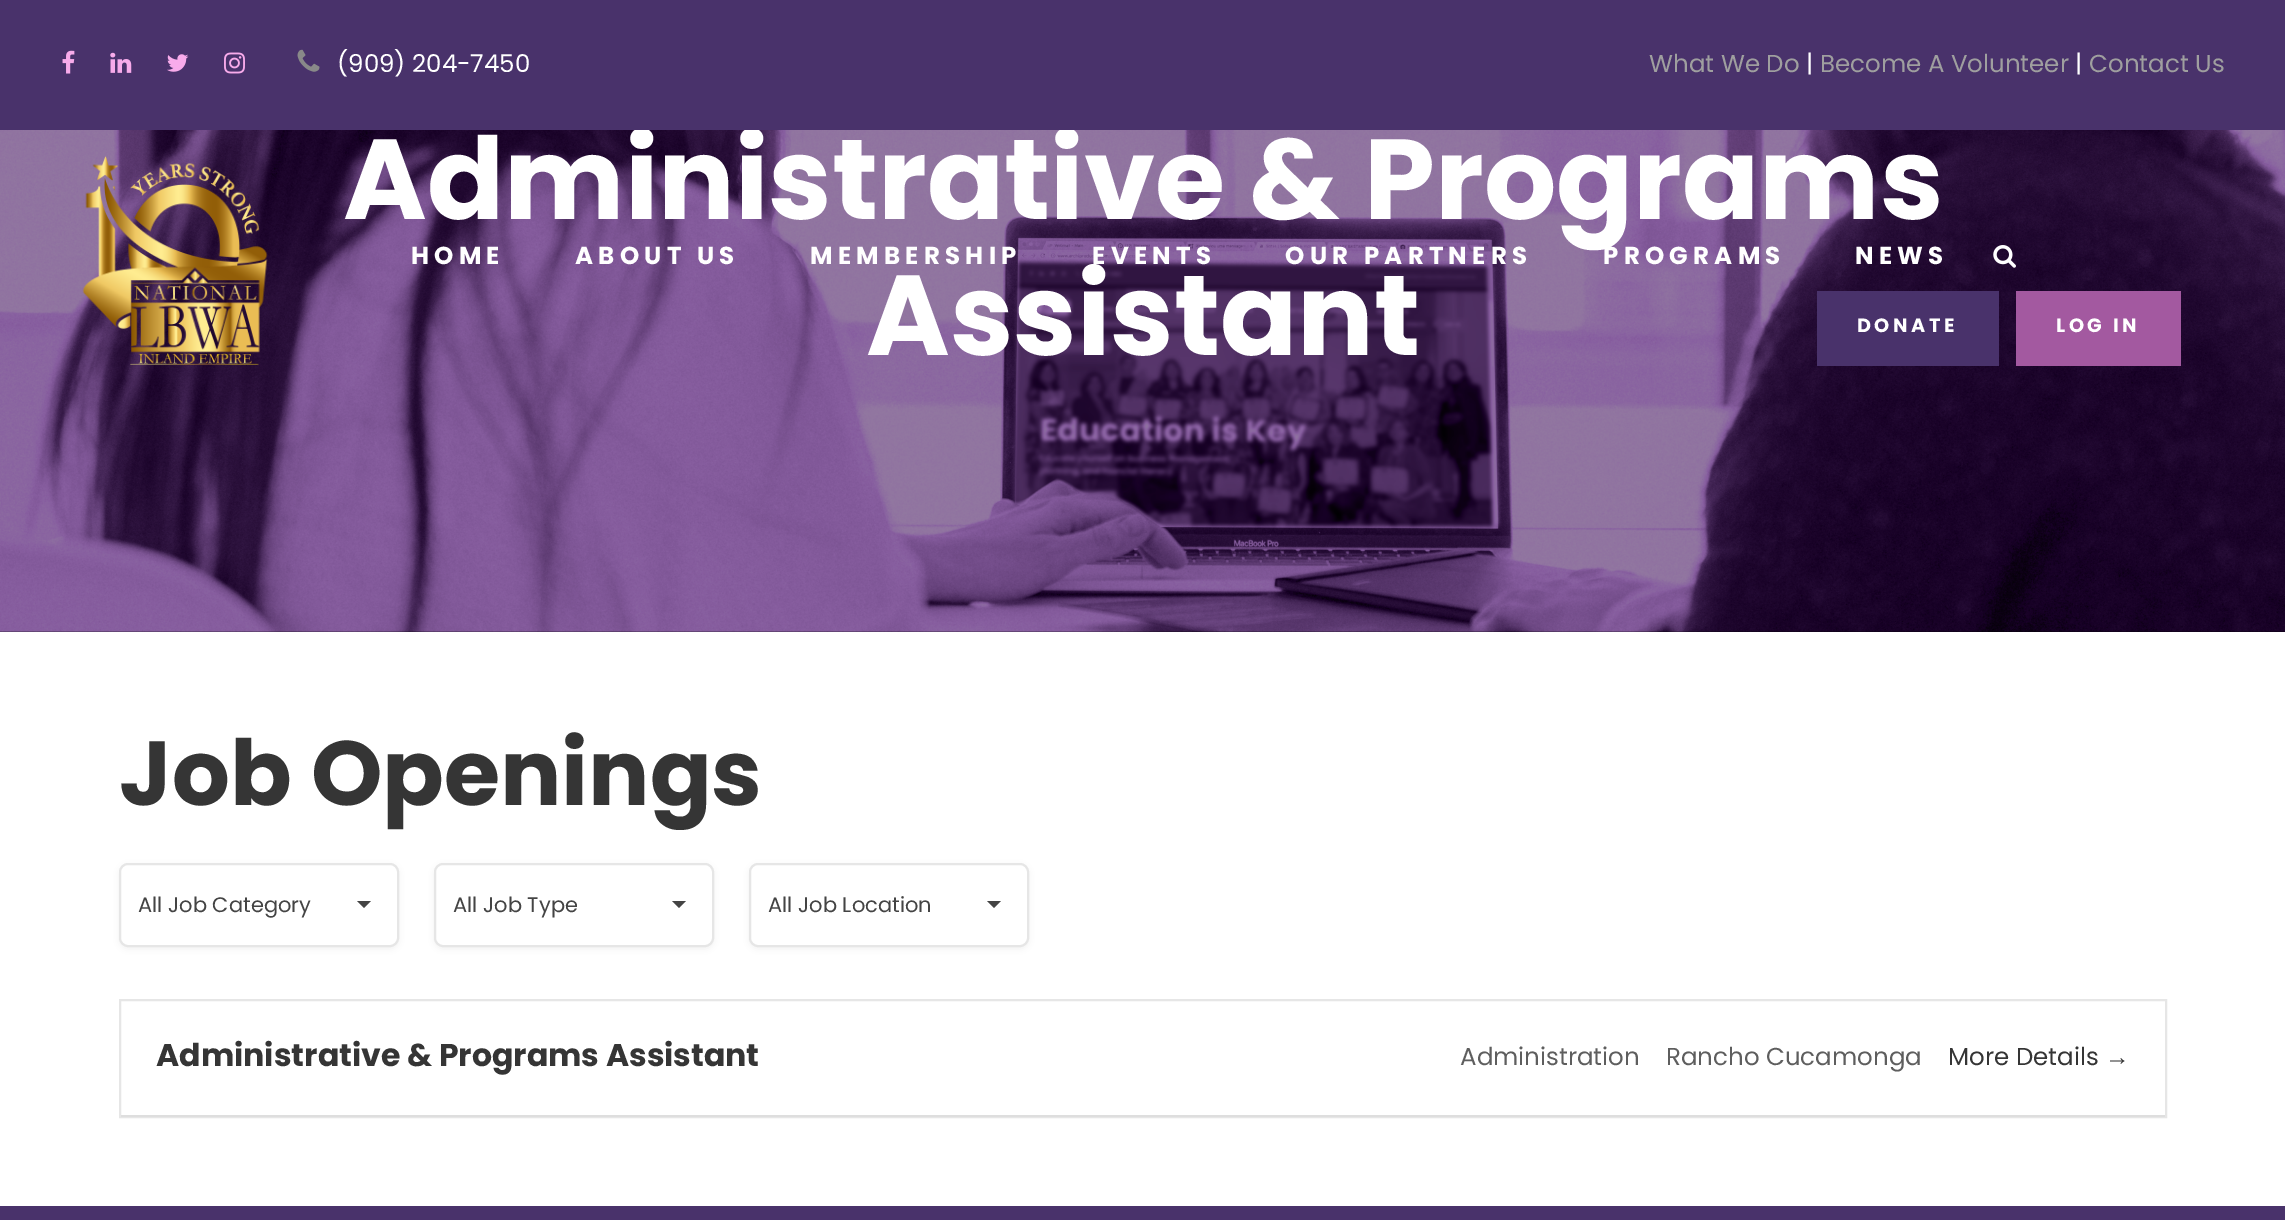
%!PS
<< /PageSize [2285 1220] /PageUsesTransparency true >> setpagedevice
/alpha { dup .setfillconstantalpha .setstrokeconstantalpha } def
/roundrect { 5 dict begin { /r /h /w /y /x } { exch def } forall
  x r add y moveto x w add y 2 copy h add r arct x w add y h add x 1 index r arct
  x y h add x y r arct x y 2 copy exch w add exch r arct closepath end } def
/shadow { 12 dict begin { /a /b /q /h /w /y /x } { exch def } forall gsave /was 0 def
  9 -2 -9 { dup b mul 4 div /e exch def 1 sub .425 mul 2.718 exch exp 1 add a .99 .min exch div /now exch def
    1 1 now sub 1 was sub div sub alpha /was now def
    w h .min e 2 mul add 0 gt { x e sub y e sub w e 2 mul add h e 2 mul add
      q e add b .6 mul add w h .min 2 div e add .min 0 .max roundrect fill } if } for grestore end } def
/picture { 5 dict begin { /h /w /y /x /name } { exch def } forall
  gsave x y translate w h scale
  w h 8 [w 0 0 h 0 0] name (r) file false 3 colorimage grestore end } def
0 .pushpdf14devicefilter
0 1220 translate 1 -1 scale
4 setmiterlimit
1 setgray
0 0 2285 1220 rectfill
(img8.rgb) 0 130 2285 502 picture
/Poppins-Bold [113.75 0 0 -113.75 0 0] selectfont
343 219 moveto (Administrative & Programs) show
0.286 0.196 0.42 setrgbcolor
0 0 2285 130 rectfill
(img1.rgb) 62 50 13 24 picture
(img2.rgb) 110 52 22 21 picture
(img3.rgb) 167 54 22 18 picture
(img4.rgb) 224 52 21 22 picture
(img5.rgb) 297 49 23 23 picture
/Poppins-Regular [24.5 0 0 -24.5 0 0] selectfont
1 setgray
337 72 moveto (\(909\) 204-7450) show
0.624 setgray
1649 72 moveto (What We Do) show
1 setgray
1806 72 moveto (|) show
0.624 setgray
1820 72 moveto (Become A Volunteer) show
1 setgray
2075 72 moveto (|) show
0.624 setgray
2089 72 moveto (Contact Us) show
(img6.rgb) 82 156 186 209 picture
/Poppins-Bold [24.5 0 0 -24.5 0 0] selectfont
1 setgray
411 264 moveto 5.25 0 (HOME) ashow
575 264 moveto 5.25 0 (ABOUT US) ashow
810 264 moveto 5.25 0 (MEMBERSHIP) ashow
1092 264 moveto 5.25 0 (EVENTS) ashow
1285 264 moveto 5.25 0 (OUR PARTNERS) ashow
1603 264 moveto 5.25 0 (PROGRAMS) ashow
1855 264 moveto 5.25 0 (NEWS) ashow
(img7.rgb) 1993 245 23 23 picture
0.286 0.196 0.42 setrgbcolor
1817 291 182 75 rectfill
/Poppins-Bold [19.25 0 0 -19.25 0 0] selectfont
1 setgray
1857 332 moveto 3.5 0 (DONATE) ashow
0.639 0.349 0.627 setrgbcolor
2016 291 165 75 rectfill
1 setgray
2056 332 moveto 3.5 0 (LOG IN) ashow
/Poppins-Bold [113.75 0 0 -113.75 0 0] selectfont
866 355 moveto (Assistant) show
/Poppins-Bold [91 0 0 -91 0 0] selectfont
0.208 setgray
119 805 moveto (Job Openings) show
0 setgray
119 865 280 84 9 3.5 0.05 shadow
1 setgray
120 864 278 82 8 roundrect gsave fill grestore
0.902 setgray
2 setlinewidth
stroke
/Poppins-Regular [21 0 0 -21 0 0] selectfont
0.267 setgray
138 912 moveto (All Job Category) show
newpath 357 901 moveto 371 901 lineto 364 908 lineto closepath fill
0 setgray
434 865 280 84 9 3.5 0.05 shadow
1 setgray
435 864 278 82 8 roundrect gsave fill grestore
0.902 setgray
stroke
0.267 setgray
453 912 moveto (All Job Type) show
newpath 672 901 moveto 686 901 lineto 679 908 lineto closepath fill
0 setgray
749 865 280 84 9 3.5 0.05 shadow
1 setgray
750 864 278 82 8 roundrect gsave fill grestore
0.902 setgray
stroke
0.267 setgray
768 912 moveto (All Job Location) show
newpath 987 901 moveto 1001 901 lineto 994 908 lineto closepath fill
0.902 setgray
120 1000 2046 117 rectstroke
0.871 setgray
121 1115 2044 2 rectfill
/Poppins-Bold [31.5 0 0 -31.5 0 0] selectfont
0.208 setgray
156 1066 moveto (Administrative & Programs Assistant) show
/Poppins-Regular [24.5 0 0 -24.5 0 0] selectfont
0.369 setgray
1460 1065 moveto (Administration) show
1666 1065 moveto (Rancho Cucamonga) show
0.208 setgray
1948 1065 moveto (More Details) show
/LiberationSans-Regular [24.5 0 0 -24.5 0 0] selectfont
2105 1065 moveto (→) show
0.286 0.196 0.42 setrgbcolor
0 1206 2285 14 rectfill
.poppdf14devicefilter showpage
